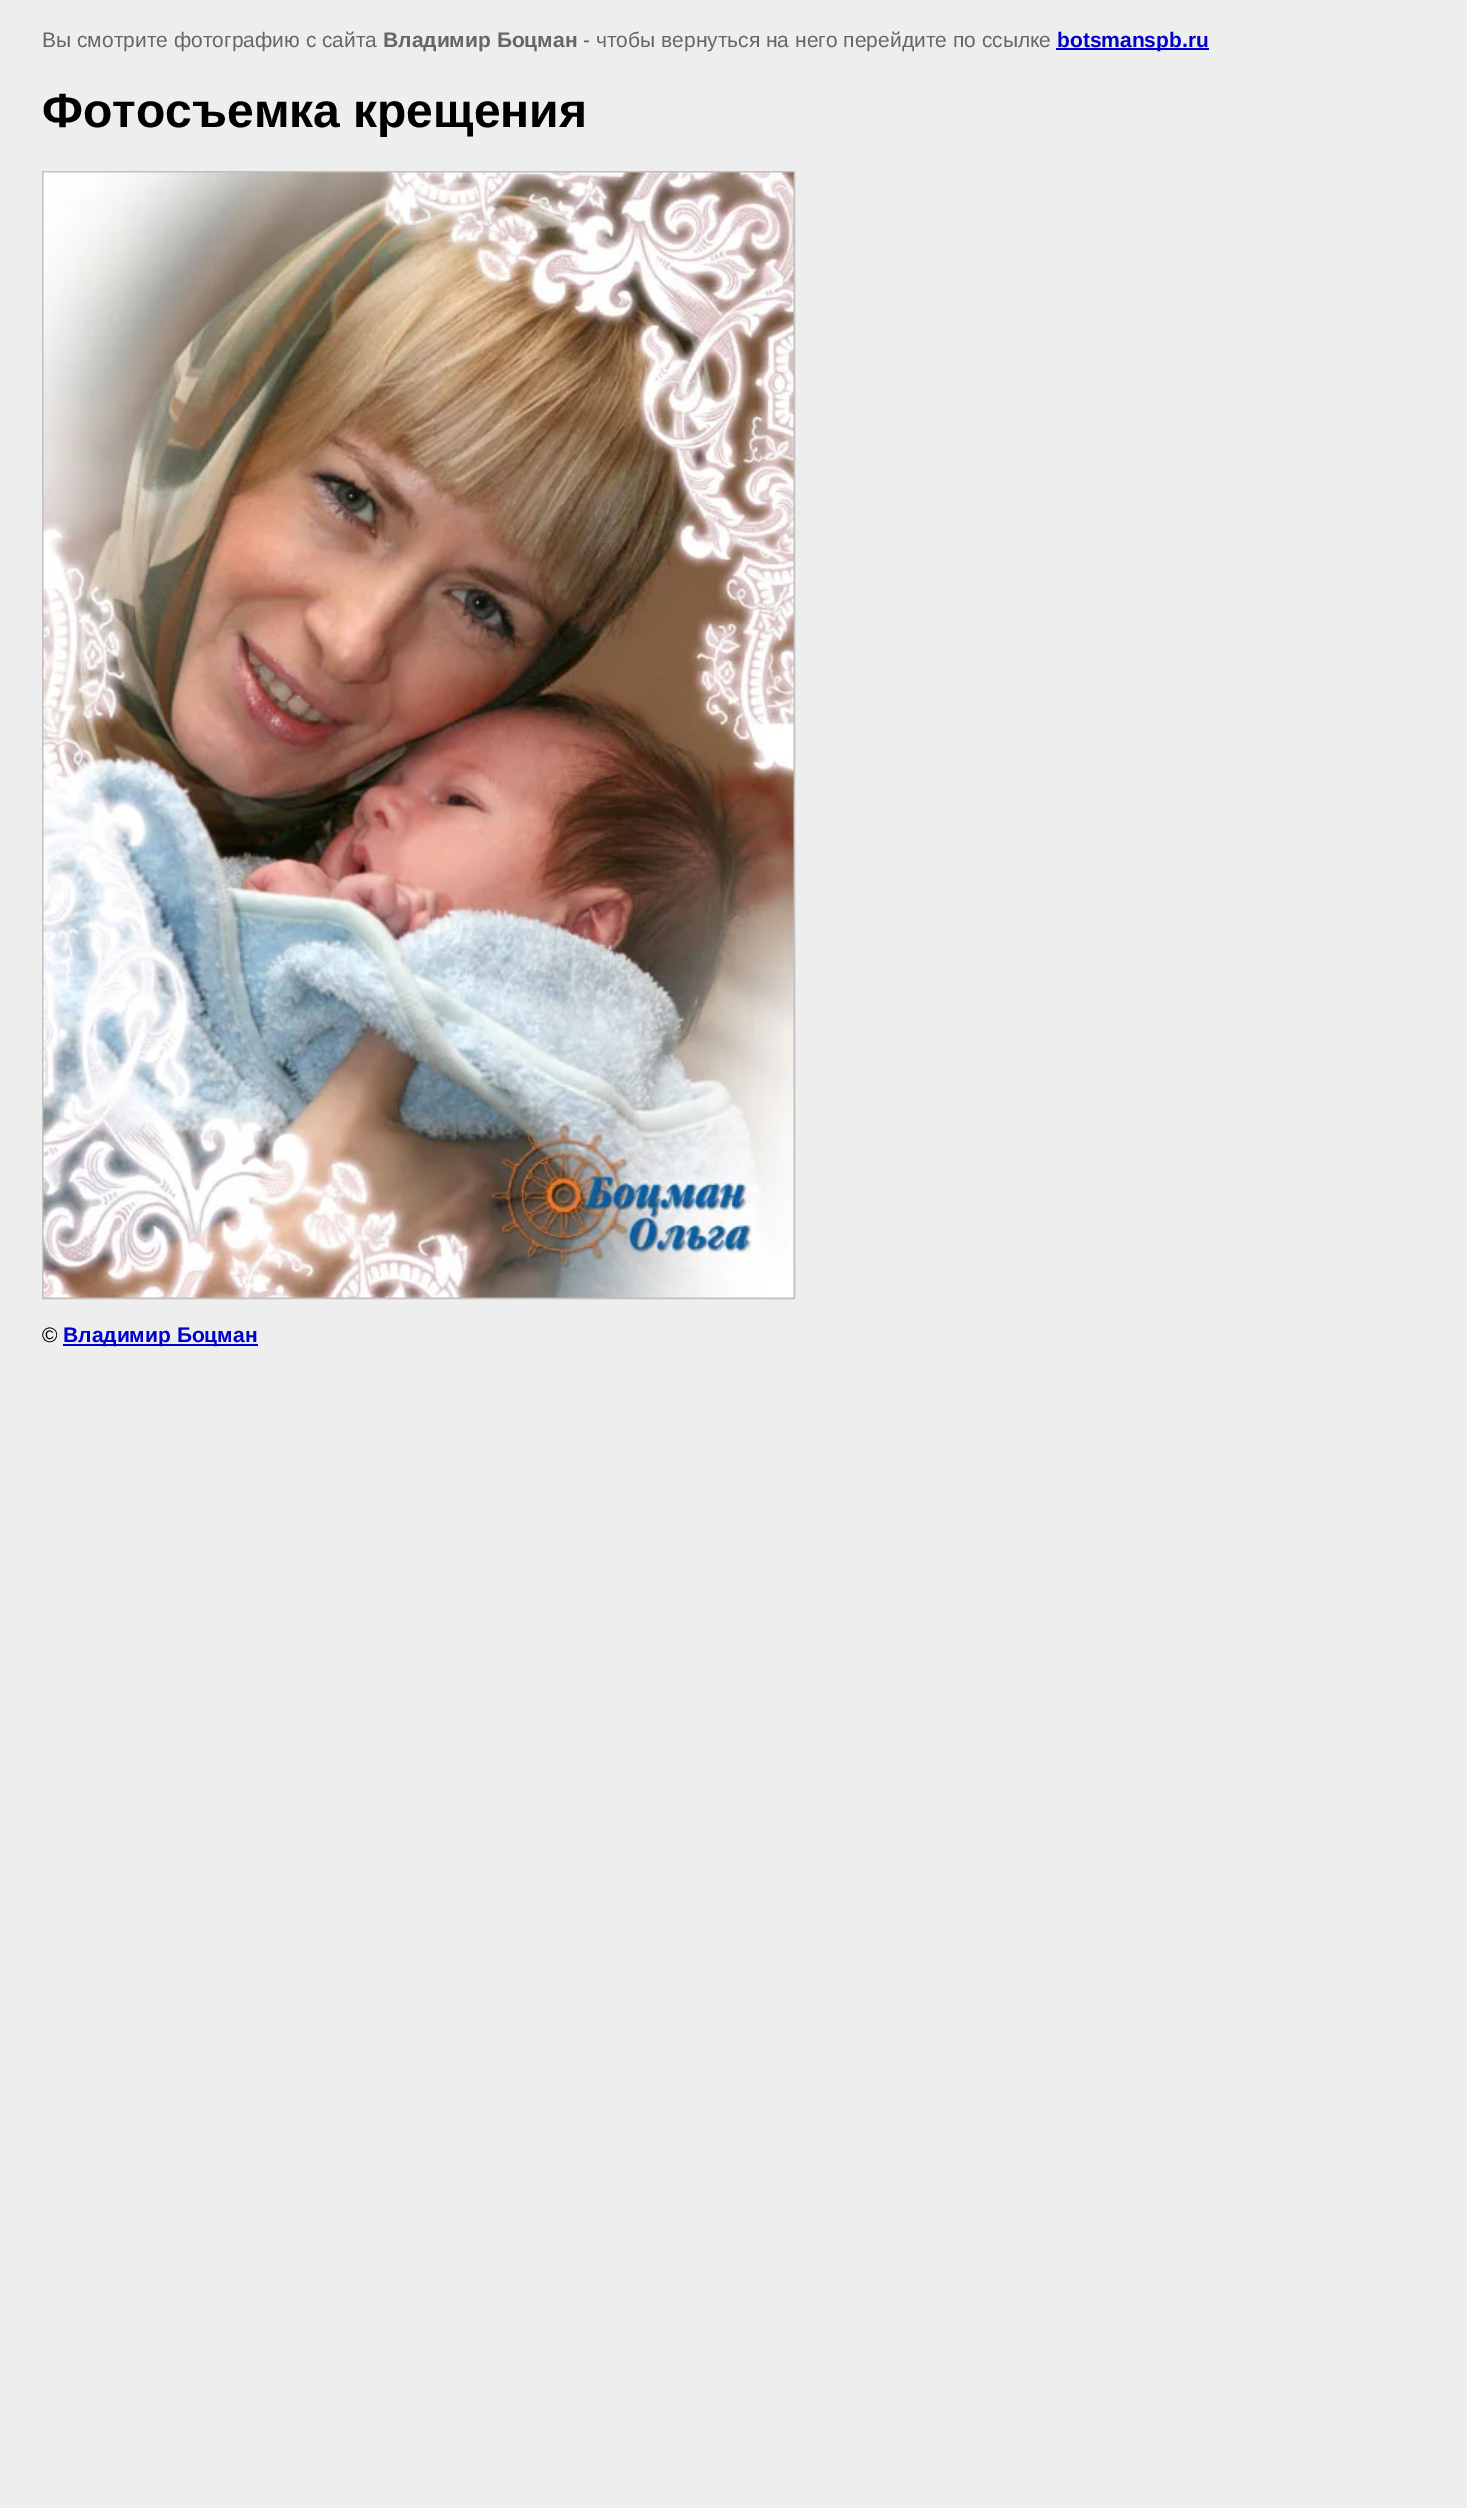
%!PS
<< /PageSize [1467 2508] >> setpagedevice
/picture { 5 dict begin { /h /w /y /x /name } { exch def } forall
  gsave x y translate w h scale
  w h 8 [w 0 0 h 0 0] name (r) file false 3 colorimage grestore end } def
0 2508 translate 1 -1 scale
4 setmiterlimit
0.933 setgray
0 0 1467 2508 rectfill
/LiberationSans-Regular [21 0 0 -21 0 0] selectfont
0.4 setgray
42 47 moveto (Вы смотрите фотографию с сайта) show
/LiberationSans-Bold [21 0 0 -21 0 0] selectfont
383 47 moveto (Владимир Боцман) show
/LiberationSans-Regular [21 0 0 -21 0 0] selectfont
583 47 moveto (- чтобы вернуться на него перейдите по ссылке) show
0 0 0.8 setrgbcolor
1056 48 153 2 rectfill
/LiberationSans-Bold [21 0 0 -21 0 0] selectfont
1057 47 moveto (botsmanspb.ru) show
/LiberationSans-Bold [48 0 0 -48 0 0] selectfont
0 setgray
42 127 moveto (Фотосъемка крещения) show
0.753 setgray
2 setlinewidth
43 172 751 1126 rectstroke
(img1.rgb) 43 172 751 1126 picture
/LiberationSans-Regular [21 0 0 -21 0 0] selectfont
0 setgray
42 1342 moveto (©) show
0 0 0.8 setrgbcolor
63 1344 195 2 rectfill
/LiberationSans-Bold [21 0 0 -21 0 0] selectfont
63 1342 moveto (Владимир Боцман) show
showpage
